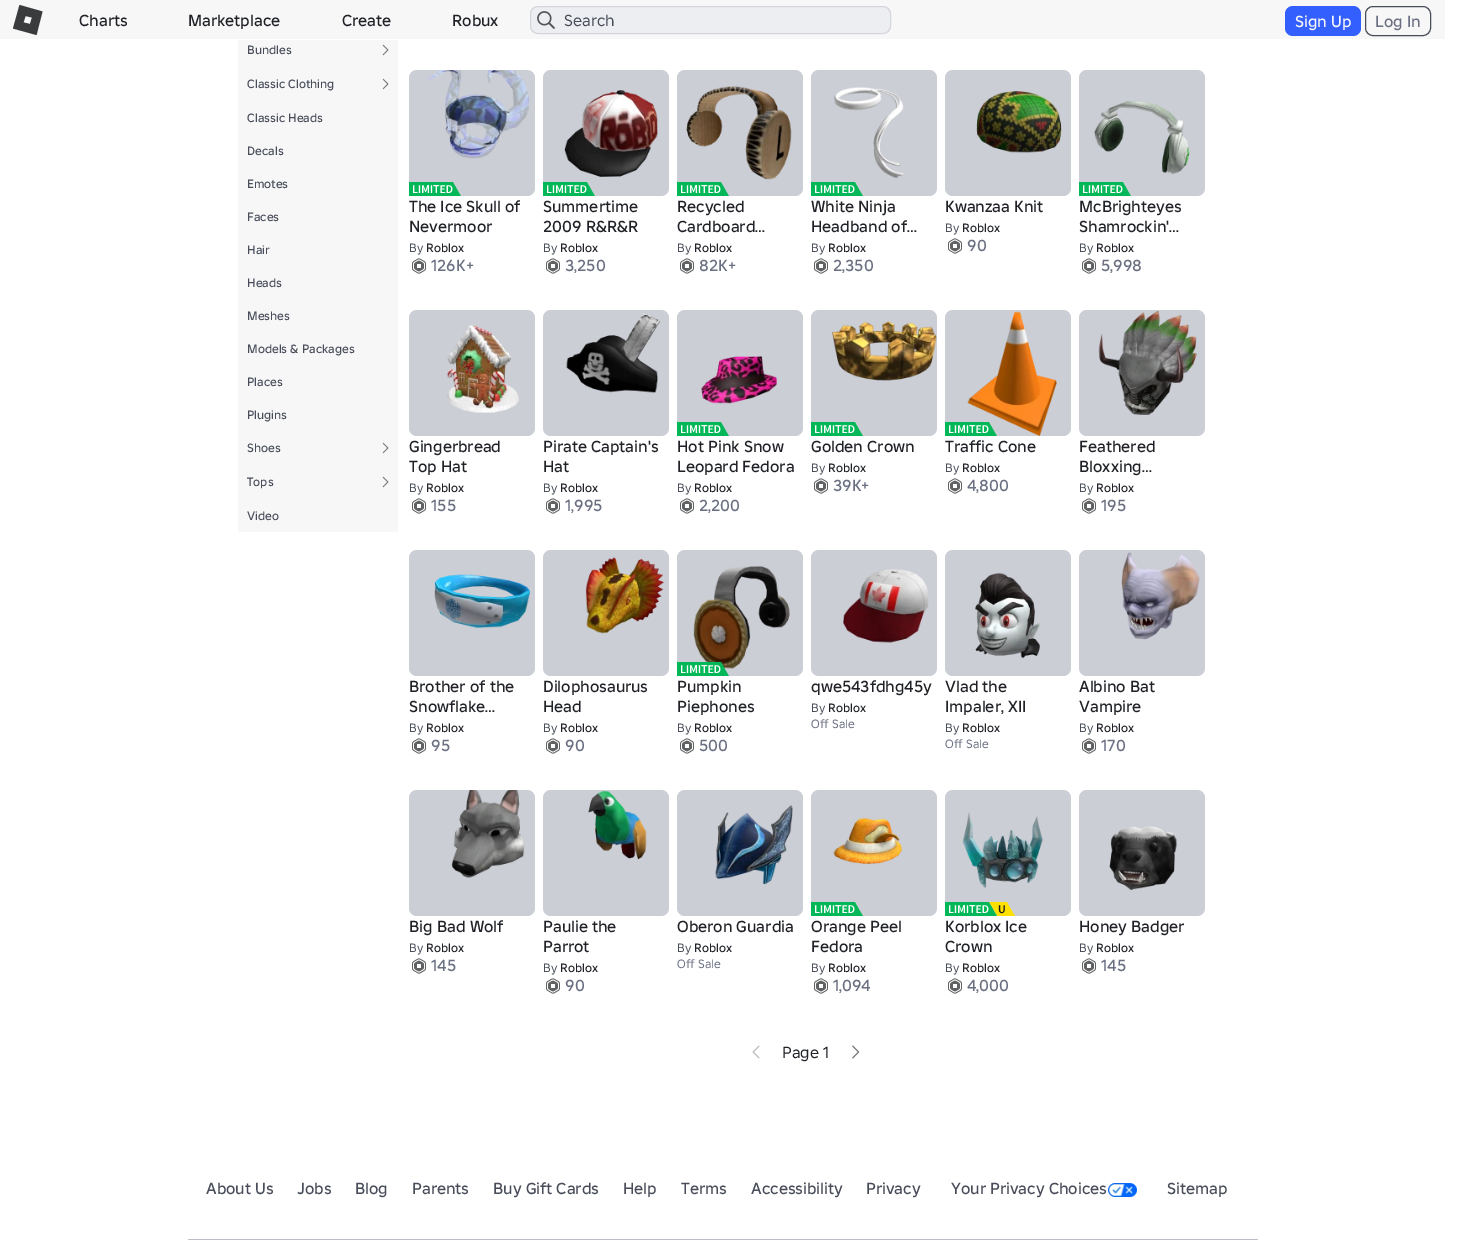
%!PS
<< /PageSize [1460 1254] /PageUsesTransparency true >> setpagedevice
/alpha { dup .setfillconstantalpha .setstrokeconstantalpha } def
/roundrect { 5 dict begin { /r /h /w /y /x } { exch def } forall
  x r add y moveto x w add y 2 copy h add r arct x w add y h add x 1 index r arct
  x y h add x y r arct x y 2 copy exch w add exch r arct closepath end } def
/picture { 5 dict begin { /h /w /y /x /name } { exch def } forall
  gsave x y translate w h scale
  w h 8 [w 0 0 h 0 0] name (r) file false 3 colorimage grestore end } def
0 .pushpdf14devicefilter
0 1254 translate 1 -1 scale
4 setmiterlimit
1 setgray
0 0 1460 1254 rectfill
0.969 0.969 0.973 setrgbcolor
0 0 1445 39 rectfill
0.224 0.231 0.239 setrgbcolor
newpath 19.5 5 moveto 13 28.5 lineto 36.5 35 lineto 42.5 11.5 lineto closepath 30 24 moveto 23.5 22.5 lineto 25.5 16 lineto 32 17.5 lineto closepath fill
/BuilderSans-Medium [16 0 0 -16 0 0] selectfont
0.125 0.133 0.153 setrgbcolor
79 26 moveto (Charts) show
188 26 moveto (Marketplace) show
342 26 moveto (Create) show
452 26 moveto (Robux) show
1 setgray
530 6 361 28 8 roundrect fill
0.08 alpha
0.106 0.145 0.294 setrgbcolor
530 6 361 28 8 roundrect fill
0.12 alpha
530.5 6.5 360 27 7.5 roundrect stroke
1 alpha
(img1.rgb) 537 11 18 18 picture
/BuilderSans-Regular [16 0 0 -16 0 0] selectfont
0.286 0.302 0.353 setrgbcolor
564 26 moveto (Search) show
0.2 0.373 1 setrgbcolor
1285 6 76 30 8 roundrect fill
/BuilderSans-Medium [16 0 0 -16 0 0] selectfont
0.969 0.969 0.973 setrgbcolor
1295 27 moveto (Sign Up) show
0.286 0.302 0.353 setrgbcolor
1365.5 6.5 65 29 7.5 roundrect stroke
0.416 0.435 0.506 setrgbcolor
1375 27 moveto (Log In) show
0.969 0.969 0.973 setrgbcolor
238 40 160 492 rectfill
/BuilderSans-Medium [12 0 0 -12 0 0] selectfont
0.286 0.302 0.353 setrgbcolor
247 54 moveto (Bundles) show
(img2.rgb) 382 44 7 12 picture
247 88 moveto (Classic Clothing) show
(img2.rgb) 382 78 7 12 picture
247 122 moveto (Classic Heads) show
247 155 moveto (Decals) show
247 188 moveto (Emotes) show
247 221 moveto (Faces) show
247 254 moveto (Hair) show
247 287 moveto (Heads) show
247 320 moveto (Meshes) show
247 353 moveto (Models & Packages) show
247 386 moveto (Places) show
247 419 moveto (Plugins) show
247 452 moveto (Shoes) show
(img2.rgb) 382 442 7 12 picture
247 486 moveto (Tops) show
(img2.rgb) 382 476 7 12 picture
247 520 moveto (Video) show
0.894 0.898 0.914 setrgbcolor
409 70 126 126 8 roundrect fill
0.12 alpha
0.106 0.145 0.294 setrgbcolor
409 70 126 126 8 roundrect fill
1 alpha
(img3.rgb) 427 70 103 89 picture
(img4.rgb) 409 182 52 14 picture
gsave
409 196 126 40 rectclip
/BuilderSans-Medium [16 0 0 -16 0 0] selectfont
0.125 0.133 0.153 setrgbcolor
409 212 moveto (The Ice Skull of) show
grestore
/BuilderSans-Medium [16 0 0 -16 0 0] selectfont
0.125 0.133 0.153 setrgbcolor
409 232 moveto (Nevermoor) show
/BuilderSans-Regular [12 0 0 -12 0 0] selectfont
0.286 0.302 0.353 setrgbcolor
409 252 moveto (By) show
/BuilderSans-Medium [12 0 0 -12 0 0] selectfont
0.125 0.133 0.153 setrgbcolor
426 252 moveto (Roblox) show
(img5.rgb) 412 258 14 16 picture
/BuilderSans-Medium [16 0 0 -16 0 0] selectfont
0.416 0.435 0.506 setrgbcolor
431 271 moveto (126K+) show
0.894 0.898 0.914 setrgbcolor
543 70 126 126 8 roundrect fill
0.12 alpha
0.106 0.145 0.294 setrgbcolor
543 70 126 126 8 roundrect fill
1 alpha
(img6.rgb) 564 90 94 87 picture
(img4.rgb) 543 182 52 14 picture
0.125 0.133 0.153 setrgbcolor
543 212 moveto (Summertime) show
543 232 moveto (2009 R&R&R) show
/BuilderSans-Regular [12 0 0 -12 0 0] selectfont
0.286 0.302 0.353 setrgbcolor
543 252 moveto (By) show
/BuilderSans-Medium [12 0 0 -12 0 0] selectfont
0.125 0.133 0.153 setrgbcolor
560 252 moveto (Roblox) show
(img5.rgb) 546 258 14 16 picture
/BuilderSans-Medium [16 0 0 -16 0 0] selectfont
0.416 0.435 0.506 setrgbcolor
565 271 moveto (3,250) show
0.894 0.898 0.914 setrgbcolor
677 70 126 126 8 roundrect fill
0.12 alpha
0.106 0.145 0.294 setrgbcolor
677 70 126 126 8 roundrect fill
1 alpha
(img7.rgb) 686 86 106 94 picture
(img4.rgb) 677 182 52 14 picture
0.125 0.133 0.153 setrgbcolor
677 212 moveto (Recycled) show
677 232 moveto (Cardboard…) show
/BuilderSans-Regular [12 0 0 -12 0 0] selectfont
0.286 0.302 0.353 setrgbcolor
677 252 moveto (By) show
/BuilderSans-Medium [12 0 0 -12 0 0] selectfont
0.125 0.133 0.153 setrgbcolor
694 252 moveto (Roblox) show
(img5.rgb) 680 258 14 16 picture
/BuilderSans-Medium [16 0 0 -16 0 0] selectfont
0.416 0.435 0.506 setrgbcolor
699 271 moveto (82K+) show
0.894 0.898 0.914 setrgbcolor
811 70 126 126 8 roundrect fill
0.12 alpha
0.106 0.145 0.294 setrgbcolor
811 70 126 126 8 roundrect fill
1 alpha
(img8.rgb) 833 87 71 92 picture
(img4.rgb) 811 182 52 14 picture
0.125 0.133 0.153 setrgbcolor
811 212 moveto (White Ninja) show
811 232 moveto (Headband of…) show
/BuilderSans-Regular [12 0 0 -12 0 0] selectfont
0.286 0.302 0.353 setrgbcolor
811 252 moveto (By) show
/BuilderSans-Medium [12 0 0 -12 0 0] selectfont
0.125 0.133 0.153 setrgbcolor
828 252 moveto (Roblox) show
(img5.rgb) 814 258 14 16 picture
/BuilderSans-Medium [16 0 0 -16 0 0] selectfont
0.416 0.435 0.506 setrgbcolor
833 271 moveto (2,350) show
0.894 0.898 0.914 setrgbcolor
945 70 126 126 8 roundrect fill
0.12 alpha
0.106 0.145 0.294 setrgbcolor
945 70 126 126 8 roundrect fill
1 alpha
(img9.rgb) 976 91 86 62 picture
0.125 0.133 0.153 setrgbcolor
945 212 moveto (Kwanzaa Knit) show
/BuilderSans-Regular [12 0 0 -12 0 0] selectfont
0.286 0.302 0.353 setrgbcolor
945 232 moveto (By) show
/BuilderSans-Medium [12 0 0 -12 0 0] selectfont
0.125 0.133 0.153 setrgbcolor
962 232 moveto (Roblox) show
(img5.rgb) 948 238 14 16 picture
/BuilderSans-Medium [16 0 0 -16 0 0] selectfont
0.416 0.435 0.506 setrgbcolor
967 251 moveto (90) show
0.894 0.898 0.914 setrgbcolor
1079 70 126 126 8 roundrect fill
0.12 alpha
0.106 0.145 0.294 setrgbcolor
1079 70 126 126 8 roundrect fill
1 alpha
(img10.rgb) 1094 101 96 74 picture
(img4.rgb) 1079 182 52 14 picture
0.125 0.133 0.153 setrgbcolor
1079 212 moveto (McBrighteyes) show
1079 232 moveto (Shamrockin'…) show
/BuilderSans-Regular [12 0 0 -12 0 0] selectfont
0.286 0.302 0.353 setrgbcolor
1079 252 moveto (By) show
/BuilderSans-Medium [12 0 0 -12 0 0] selectfont
0.125 0.133 0.153 setrgbcolor
1096 252 moveto (Roblox) show
(img5.rgb) 1082 258 14 16 picture
/BuilderSans-Medium [16 0 0 -16 0 0] selectfont
0.416 0.435 0.506 setrgbcolor
1101 271 moveto (5,998) show
0.894 0.898 0.914 setrgbcolor
409 310 126 126 8 roundrect fill
0.12 alpha
0.106 0.145 0.294 setrgbcolor
409 310 126 126 8 roundrect fill
1 alpha
(img11.rgb) 447 325 72 88 picture
0.125 0.133 0.153 setrgbcolor
409 452 moveto (Gingerbread) show
gsave
409 436 126 40 rectclip
409 472 moveto (Top Hat) show
grestore
/BuilderSans-Regular [12 0 0 -12 0 0] selectfont
0.286 0.302 0.353 setrgbcolor
409 492 moveto (By) show
/BuilderSans-Medium [12 0 0 -12 0 0] selectfont
0.125 0.133 0.153 setrgbcolor
426 492 moveto (Roblox) show
(img5.rgb) 412 498 14 16 picture
/BuilderSans-Medium [16 0 0 -16 0 0] selectfont
0.416 0.435 0.506 setrgbcolor
431 511 moveto (155) show
0.894 0.898 0.914 setrgbcolor
543 310 126 126 8 roundrect fill
0.12 alpha
0.106 0.145 0.294 setrgbcolor
543 310 126 126 8 roundrect fill
1 alpha
(img12.rgb) 566 313 95 80 picture
0.125 0.133 0.153 setrgbcolor
543 452 moveto (Pirate Captain's) show
543 472 moveto (Hat) show
/BuilderSans-Regular [12 0 0 -12 0 0] selectfont
0.286 0.302 0.353 setrgbcolor
543 492 moveto (By) show
/BuilderSans-Medium [12 0 0 -12 0 0] selectfont
0.125 0.133 0.153 setrgbcolor
560 492 moveto (Roblox) show
(img5.rgb) 546 498 14 16 picture
/BuilderSans-Medium [16 0 0 -16 0 0] selectfont
0.416 0.435 0.506 setrgbcolor
565 511 moveto (1,995) show
0.894 0.898 0.914 setrgbcolor
677 310 126 126 8 roundrect fill
0.12 alpha
0.106 0.145 0.294 setrgbcolor
677 310 126 126 8 roundrect fill
1 alpha
(img13.rgb) 701 356 76 48 picture
(img4.rgb) 677 422 52 14 picture
0.125 0.133 0.153 setrgbcolor
677 452 moveto (Hot Pink Snow) show
677 472 moveto (Leopard Fedora) show
/BuilderSans-Regular [12 0 0 -12 0 0] selectfont
0.286 0.302 0.353 setrgbcolor
677 492 moveto (By) show
/BuilderSans-Medium [12 0 0 -12 0 0] selectfont
0.125 0.133 0.153 setrgbcolor
694 492 moveto (Roblox) show
(img5.rgb) 680 498 14 16 picture
/BuilderSans-Medium [16 0 0 -16 0 0] selectfont
0.416 0.435 0.506 setrgbcolor
699 511 moveto (2,200) show
0.894 0.898 0.914 setrgbcolor
811 310 126 126 8 roundrect fill
0.12 alpha
0.106 0.145 0.294 setrgbcolor
811 310 126 126 8 roundrect fill
1 alpha
(img14.rgb) 832 321 105 60 picture
(img4.rgb) 811 422 52 14 picture
0.125 0.133 0.153 setrgbcolor
811 452 moveto (Golden Crown) show
/BuilderSans-Regular [12 0 0 -12 0 0] selectfont
0.286 0.302 0.353 setrgbcolor
811 472 moveto (By) show
/BuilderSans-Medium [12 0 0 -12 0 0] selectfont
0.125 0.133 0.153 setrgbcolor
828 472 moveto (Roblox) show
(img5.rgb) 814 478 14 16 picture
/BuilderSans-Medium [16 0 0 -16 0 0] selectfont
0.416 0.435 0.506 setrgbcolor
833 491 moveto (39K+) show
0.894 0.898 0.914 setrgbcolor
945 310 126 126 8 roundrect fill
0.12 alpha
0.106 0.145 0.294 setrgbcolor
945 310 126 126 8 roundrect fill
1 alpha
(img15.rgb) 967 311 90 125 picture
(img4.rgb) 945 422 52 14 picture
gsave
945 436 126 20 rectclip
0.125 0.133 0.153 setrgbcolor
945 452 moveto (Traffic Cone) show
grestore
/BuilderSans-Regular [12 0 0 -12 0 0] selectfont
0.286 0.302 0.353 setrgbcolor
945 472 moveto (By) show
/BuilderSans-Medium [12 0 0 -12 0 0] selectfont
0.125 0.133 0.153 setrgbcolor
962 472 moveto (Roblox) show
(img5.rgb) 948 478 14 16 picture
/BuilderSans-Medium [16 0 0 -16 0 0] selectfont
0.416 0.435 0.506 setrgbcolor
967 491 moveto (4,800) show
0.894 0.898 0.914 setrgbcolor
1079 310 126 126 8 roundrect fill
0.12 alpha
0.106 0.145 0.294 setrgbcolor
1079 310 126 126 8 roundrect fill
1 alpha
(img16.rgb) 1098 310 99 105 picture
0.125 0.133 0.153 setrgbcolor
1079 452 moveto (Feathered) show
1079 472 moveto (Bloxxing…) show
/BuilderSans-Regular [12 0 0 -12 0 0] selectfont
0.286 0.302 0.353 setrgbcolor
1079 492 moveto (By) show
/BuilderSans-Medium [12 0 0 -12 0 0] selectfont
0.125 0.133 0.153 setrgbcolor
1096 492 moveto (Roblox) show
(img5.rgb) 1082 498 14 16 picture
/BuilderSans-Medium [16 0 0 -16 0 0] selectfont
0.416 0.435 0.506 setrgbcolor
1101 511 moveto (195) show
0.894 0.898 0.914 setrgbcolor
409 550 126 126 8 roundrect fill
0.12 alpha
0.106 0.145 0.294 setrgbcolor
409 550 126 126 8 roundrect fill
1 alpha
(img17.rgb) 434 574 97 55 picture
0.125 0.133 0.153 setrgbcolor
409 692 moveto (Brother of the) show
409 712 moveto (Snowflake…) show
/BuilderSans-Regular [12 0 0 -12 0 0] selectfont
0.286 0.302 0.353 setrgbcolor
409 732 moveto (By) show
/BuilderSans-Medium [12 0 0 -12 0 0] selectfont
0.125 0.133 0.153 setrgbcolor
426 732 moveto (Roblox) show
(img5.rgb) 412 738 14 16 picture
/BuilderSans-Medium [16 0 0 -16 0 0] selectfont
0.416 0.435 0.506 setrgbcolor
431 751 moveto (95) show
0.894 0.898 0.914 setrgbcolor
543 550 126 126 8 roundrect fill
0.12 alpha
0.106 0.145 0.294 setrgbcolor
543 550 126 126 8 roundrect fill
1 alpha
(img18.rgb) 585 557 79 77 picture
0.125 0.133 0.153 setrgbcolor
543 692 moveto (Dilophosaurus) show
543 712 moveto (Head) show
/BuilderSans-Regular [12 0 0 -12 0 0] selectfont
0.286 0.302 0.353 setrgbcolor
543 732 moveto (By) show
/BuilderSans-Medium [12 0 0 -12 0 0] selectfont
0.125 0.133 0.153 setrgbcolor
560 732 moveto (Roblox) show
(img5.rgb) 546 738 14 16 picture
/BuilderSans-Medium [16 0 0 -16 0 0] selectfont
0.416 0.435 0.506 setrgbcolor
565 751 moveto (90) show
0.894 0.898 0.914 setrgbcolor
677 550 126 126 8 roundrect fill
0.12 alpha
0.106 0.145 0.294 setrgbcolor
677 550 126 126 8 roundrect fill
1 alpha
(img19.rgb) 693 566 97 103 picture
(img20.rgb) 677 662 52 14 picture
0.125 0.133 0.153 setrgbcolor
677 692 moveto (Pumpkin) show
677 712 moveto (Piephones) show
/BuilderSans-Regular [12 0 0 -12 0 0] selectfont
0.286 0.302 0.353 setrgbcolor
677 732 moveto (By) show
/BuilderSans-Medium [12 0 0 -12 0 0] selectfont
0.125 0.133 0.153 setrgbcolor
694 732 moveto (Roblox) show
(img5.rgb) 680 738 14 16 picture
/BuilderSans-Medium [16 0 0 -16 0 0] selectfont
0.416 0.435 0.506 setrgbcolor
699 751 moveto (500) show
0.894 0.898 0.914 setrgbcolor
811 550 126 126 8 roundrect fill
0.12 alpha
0.106 0.145 0.294 setrgbcolor
811 550 126 126 8 roundrect fill
1 alpha
(img21.rgb) 843 569 86 74 picture
0.125 0.133 0.153 setrgbcolor
811 692 moveto (qwe543fdhg45y) show
/BuilderSans-Regular [12 0 0 -12 0 0] selectfont
0.286 0.302 0.353 setrgbcolor
811 712 moveto (By) show
/BuilderSans-Medium [12 0 0 -12 0 0] selectfont
0.125 0.133 0.153 setrgbcolor
828 712 moveto (Roblox) show
/BuilderSans-Regular [12 0 0 -12 0 0] selectfont
0.416 0.435 0.506 setrgbcolor
811 728 moveto (Off Sale) show
0.894 0.898 0.914 setrgbcolor
945 550 126 126 8 roundrect fill
0.12 alpha
0.106 0.145 0.294 setrgbcolor
945 550 126 126 8 roundrect fill
1 alpha
(img22.rgb) 975 572 66 87 picture
/BuilderSans-Medium [16 0 0 -16 0 0] selectfont
0.125 0.133 0.153 setrgbcolor
945 692 moveto (Vlad the) show
945 712 moveto (Impaler, XII) show
/BuilderSans-Regular [12 0 0 -12 0 0] selectfont
0.286 0.302 0.353 setrgbcolor
945 732 moveto (By) show
/BuilderSans-Medium [12 0 0 -12 0 0] selectfont
0.125 0.133 0.153 setrgbcolor
962 732 moveto (Roblox) show
/BuilderSans-Regular [12 0 0 -12 0 0] selectfont
0.416 0.435 0.506 setrgbcolor
945 748 moveto (Off Sale) show
0.894 0.898 0.914 setrgbcolor
1079 550 126 126 8 roundrect fill
0.12 alpha
0.106 0.145 0.294 setrgbcolor
1079 550 126 126 8 roundrect fill
1 alpha
(img23.rgb) 1121 552 79 88 picture
/BuilderSans-Medium [16 0 0 -16 0 0] selectfont
0.125 0.133 0.153 setrgbcolor
1079 692 moveto (Albino Bat) show
1079 712 moveto (Vampire) show
/BuilderSans-Regular [12 0 0 -12 0 0] selectfont
0.286 0.302 0.353 setrgbcolor
1079 732 moveto (By) show
/BuilderSans-Medium [12 0 0 -12 0 0] selectfont
0.125 0.133 0.153 setrgbcolor
1096 732 moveto (Roblox) show
(img5.rgb) 1082 738 14 16 picture
/BuilderSans-Medium [16 0 0 -16 0 0] selectfont
0.416 0.435 0.506 setrgbcolor
1101 751 moveto (170) show
0.894 0.898 0.914 setrgbcolor
409 790 126 126 8 roundrect fill
0.12 alpha
0.106 0.145 0.294 setrgbcolor
409 790 126 126 8 roundrect fill
1 alpha
(img24.rgb) 451 790 74 88 picture
0.125 0.133 0.153 setrgbcolor
409 932 moveto (Big Bad Wolf) show
/BuilderSans-Regular [12 0 0 -12 0 0] selectfont
0.286 0.302 0.353 setrgbcolor
409 952 moveto (By) show
/BuilderSans-Medium [12 0 0 -12 0 0] selectfont
0.125 0.133 0.153 setrgbcolor
426 952 moveto (Roblox) show
(img5.rgb) 412 958 14 16 picture
/BuilderSans-Medium [16 0 0 -16 0 0] selectfont
0.416 0.435 0.506 setrgbcolor
431 971 moveto (145) show
0.894 0.898 0.914 setrgbcolor
543 790 126 126 8 roundrect fill
0.12 alpha
0.106 0.145 0.294 setrgbcolor
543 790 126 126 8 roundrect fill
1 alpha
(img25.rgb) 588 790 59 70 picture
0.125 0.133 0.153 setrgbcolor
543 932 moveto (Paulie the) show
543 952 moveto (Parrot) show
/BuilderSans-Regular [12 0 0 -12 0 0] selectfont
0.286 0.302 0.353 setrgbcolor
543 972 moveto (By) show
/BuilderSans-Medium [12 0 0 -12 0 0] selectfont
0.125 0.133 0.153 setrgbcolor
560 972 moveto (Roblox) show
(img5.rgb) 546 978 14 16 picture
/BuilderSans-Medium [16 0 0 -16 0 0] selectfont
0.416 0.435 0.506 setrgbcolor
565 991 moveto (90) show
0.894 0.898 0.914 setrgbcolor
677 790 126 126 8 roundrect fill
0.12 alpha
0.106 0.145 0.294 setrgbcolor
677 790 126 126 8 roundrect fill
1 alpha
(img26.rgb) 715 805 78 80 picture
0.125 0.133 0.153 setrgbcolor
677 932 moveto (Oberon Guardia) show
/BuilderSans-Regular [12 0 0 -12 0 0] selectfont
0.286 0.302 0.353 setrgbcolor
677 952 moveto (By) show
/BuilderSans-Medium [12 0 0 -12 0 0] selectfont
0.125 0.133 0.153 setrgbcolor
694 952 moveto (Roblox) show
/BuilderSans-Regular [12 0 0 -12 0 0] selectfont
0.416 0.435 0.506 setrgbcolor
677 968 moveto (Off Sale) show
0.894 0.898 0.914 setrgbcolor
811 790 126 126 8 roundrect fill
0.12 alpha
0.106 0.145 0.294 setrgbcolor
811 790 126 126 8 roundrect fill
1 alpha
(img27.rgb) 833 817 69 47 picture
(img4.rgb) 811 902 52 14 picture
/BuilderSans-Medium [16 0 0 -16 0 0] selectfont
0.125 0.133 0.153 setrgbcolor
811 932 moveto (Orange Peel) show
811 952 moveto (Fedora) show
/BuilderSans-Regular [12 0 0 -12 0 0] selectfont
0.286 0.302 0.353 setrgbcolor
811 972 moveto (By) show
/BuilderSans-Medium [12 0 0 -12 0 0] selectfont
0.125 0.133 0.153 setrgbcolor
828 972 moveto (Roblox) show
(img5.rgb) 814 978 14 16 picture
/BuilderSans-Medium [16 0 0 -16 0 0] selectfont
0.416 0.435 0.506 setrgbcolor
833 991 moveto (1,094) show
0.894 0.898 0.914 setrgbcolor
945 790 126 126 8 roundrect fill
0.12 alpha
0.106 0.145 0.294 setrgbcolor
945 790 126 126 8 roundrect fill
1 alpha
(img28.rgb) 962 812 81 77 picture
(img29.rgb) 945 902 70 14 picture
0.125 0.133 0.153 setrgbcolor
945 932 moveto (Korblox Ice) show
945 952 moveto (Crown) show
/BuilderSans-Regular [12 0 0 -12 0 0] selectfont
0.286 0.302 0.353 setrgbcolor
945 972 moveto (By) show
/BuilderSans-Medium [12 0 0 -12 0 0] selectfont
0.125 0.133 0.153 setrgbcolor
962 972 moveto (Roblox) show
(img5.rgb) 948 978 14 16 picture
/BuilderSans-Medium [16 0 0 -16 0 0] selectfont
0.416 0.435 0.506 setrgbcolor
967 991 moveto (4,000) show
0.894 0.898 0.914 setrgbcolor
1079 790 126 126 8 roundrect fill
0.12 alpha
0.106 0.145 0.294 setrgbcolor
1079 790 126 126 8 roundrect fill
1 alpha
(img30.rgb) 1109 826 68 64 picture
0.125 0.133 0.153 setrgbcolor
1079 932 moveto (Honey Badger) show
/BuilderSans-Regular [12 0 0 -12 0 0] selectfont
0.286 0.302 0.353 setrgbcolor
1079 952 moveto (By) show
/BuilderSans-Medium [12 0 0 -12 0 0] selectfont
0.125 0.133 0.153 setrgbcolor
1096 952 moveto (Roblox) show
(img5.rgb) 1082 958 14 16 picture
/BuilderSans-Medium [16 0 0 -16 0 0] selectfont
0.416 0.435 0.506 setrgbcolor
1101 971 moveto (145) show
(img31.rgb) 752 1045 8 14 picture
/BuilderSans-Regular [16 0 0 -16 0 0] selectfont
0.125 0.133 0.153 setrgbcolor
782 1058 moveto (Page 1) show
(img32.rgb) 852 1045 8 14 picture
/BuilderSans-Medium [16 0 0 -16 0 0] selectfont
0.286 0.302 0.353 setrgbcolor
206 1194 moveto (About Us) show
297 1194 moveto (Jobs) show
355 1194 moveto (Blog) show
412 1194 moveto (Parents) show
493 1194 moveto (Buy Gift Cards) show
623 1194 moveto (Help) show
681 1194 moveto (Terms) show
751 1194 moveto (Accessibility) show
866 1194 moveto (Privacy) show
951 1194 moveto (Your Privacy Choices) show
(img33.rgb) 1108 1183 29 14 picture
1167 1194 moveto (Sitemap) show
0.737 0.745 0.784 setrgbcolor
188 1239 1070 1 rectfill
.poppdf14devicefilter showpage
